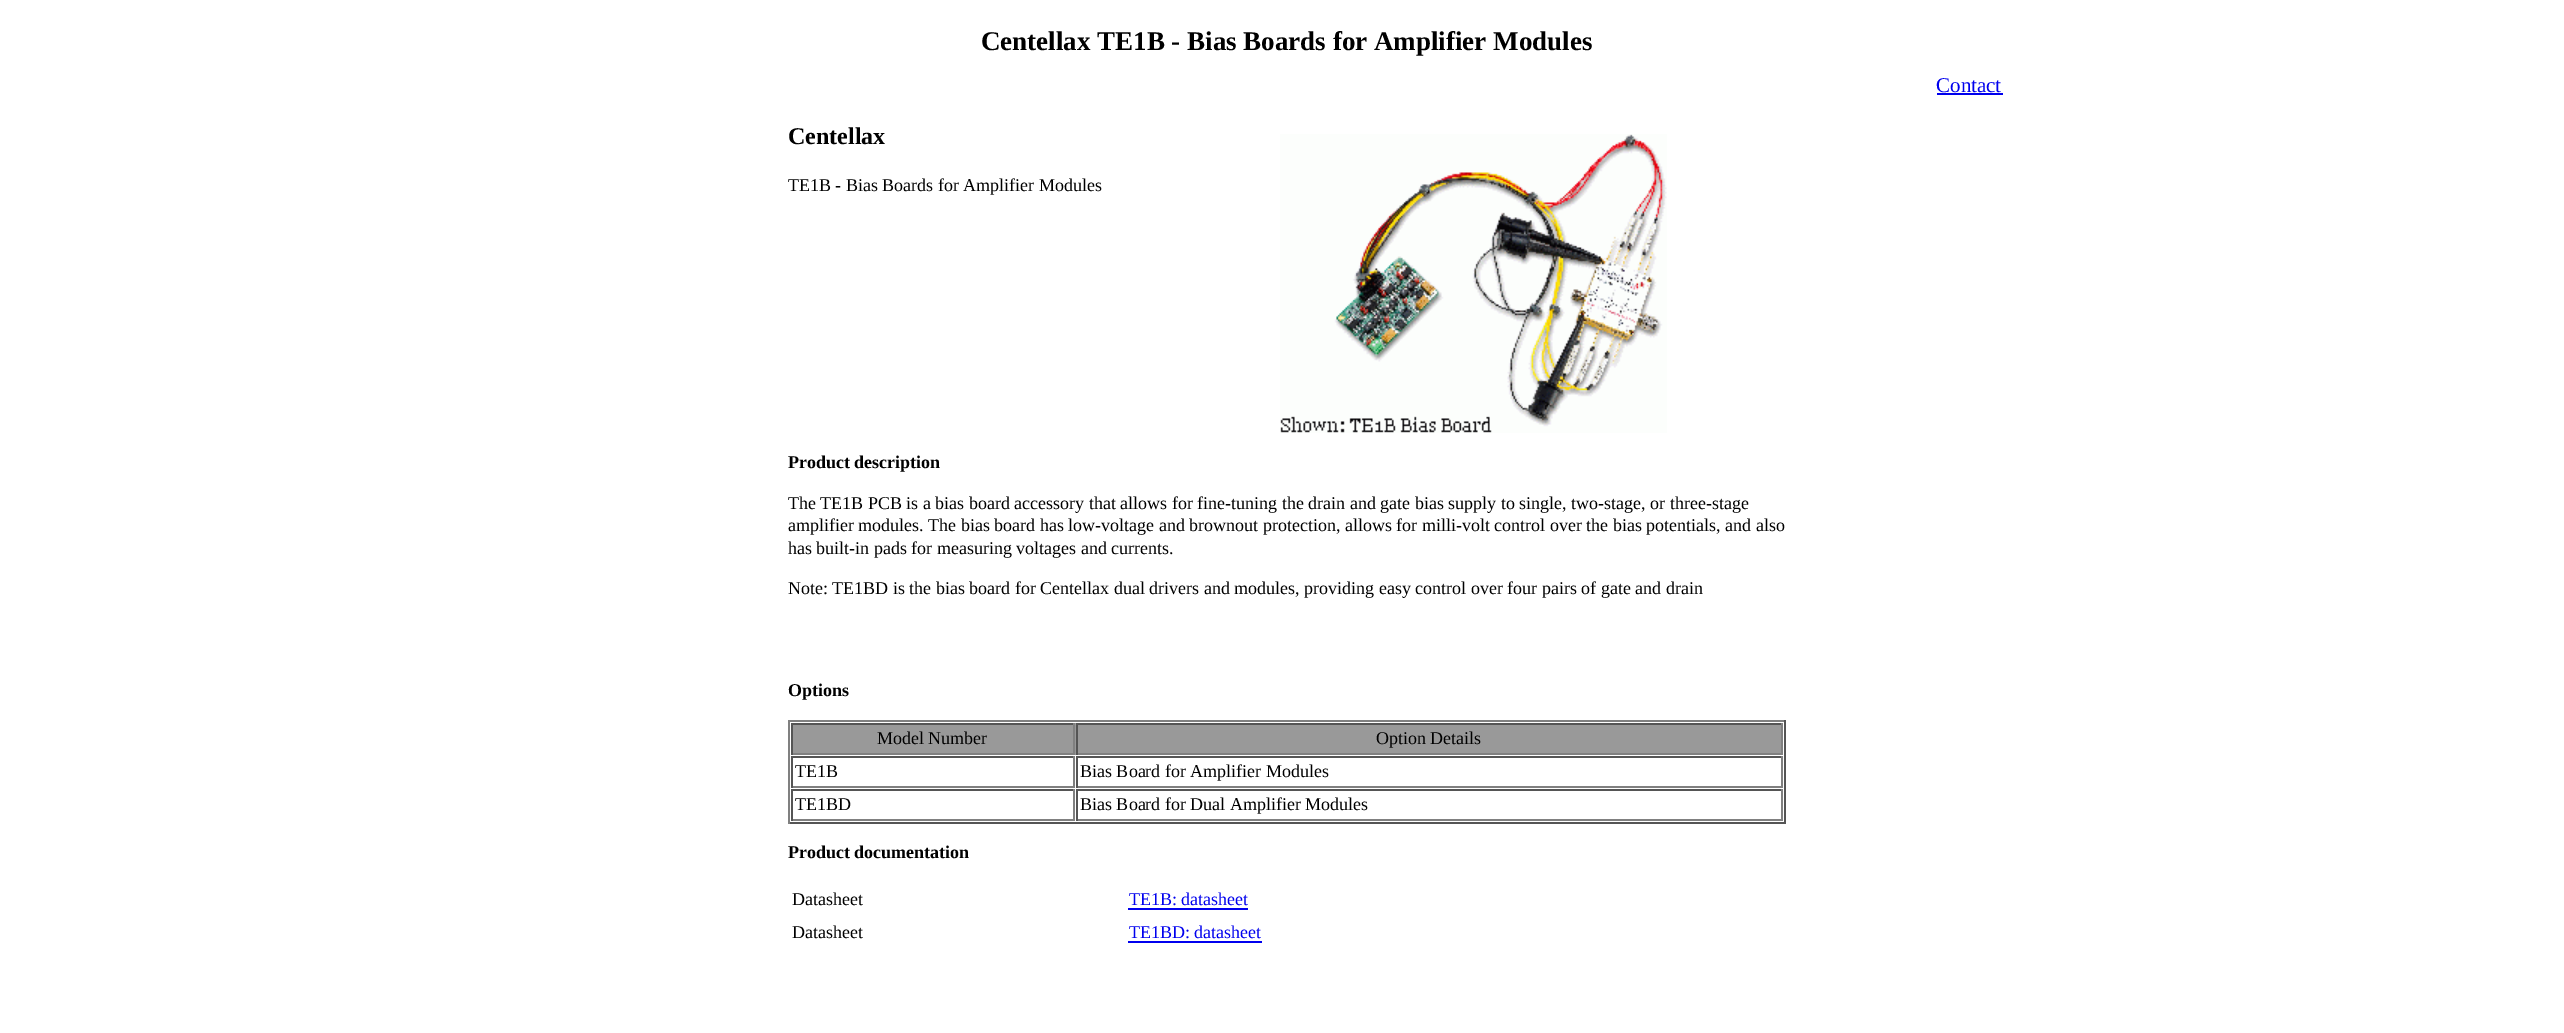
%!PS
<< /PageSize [2564 1033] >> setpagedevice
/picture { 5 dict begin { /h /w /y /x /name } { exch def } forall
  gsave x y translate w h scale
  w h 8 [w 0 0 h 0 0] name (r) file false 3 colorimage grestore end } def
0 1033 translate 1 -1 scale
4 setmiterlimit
1 setgray
0 0 2564 1033 rectfill
/LiberationSerif-Bold [27 0 0 -27 0 0] selectfont
0 setgray
981 50 moveto (Centellax TE1B - Bias Boards for Amplifier Modules) show
/LiberationSerif-Regular [21 0 0 -21 0 0] selectfont
0 0 0.933 setrgbcolor
1936 92 moveto (Contact) show
1937 93 66 2 rectfill
/LiberationSerif-Bold [24 0 0 -24 0 0] selectfont
0 setgray
788 144 moveto (Centellax) show
/LiberationSerif-Regular [18 0 0 -18 0 0] selectfont
788 191 moveto (TE1B - Bias Boards for Amplifier Modules) show
(img1.rgb) 1280 134 387 299 picture
/LiberationSerif-Bold [18 0 0 -18 0 0] selectfont
788 468 moveto (Product description) show
/LiberationSerif-Regular [18 0 0 -18 0 0] selectfont
788 509 moveto (The TE1B PCB is a bias board accessory that allows for fine-tuning the drain and gate bias supply to single, two-stage, or three-stage) show
788 531 moveto (amplifier modules. The bias board has low-voltage and brownout protection, allows for milli-volt control over the bias potentials, and also) show
788 554 moveto (has built-in pads for measuring voltages and currents.) show
788 594 moveto (Note: TE1BD is the bias board for Centellax dual drivers and modules, providing easy control over four pairs of gate and drain) show
/LiberationSerif-Bold [18 0 0 -18 0 0] selectfont
788 696 moveto (Options) show
0.502 setgray
788 720 997 2 rectfill
0.333 setgray
1784 720 2 104 rectfill
788 822 997 2 rectfill
0.502 setgray
788 720 2 104 rectfill
0.6 setgray
793 723 988 32 rectfill
0.333 setgray
791 723 283 2 rectfill
0.502 setgray
1073 723 2 32 rectfill
791 753 283 2 rectfill
0.333 setgray
791 723 2 32 rectfill
/LiberationSerif-Regular [18 0 0 -18 0 0] selectfont
0 setgray
877 744 moveto (Model Number) show
0.333 setgray
1076 723 706 2 rectfill
0.502 setgray
1781 723 2 32 rectfill
1076 753 706 2 rectfill
0.333 setgray
1076 723 2 32 rectfill
0 setgray
1376 744 moveto (Option Details) show
0.333 setgray
791 756 283 2 rectfill
0.502 setgray
1073 756 2 32 rectfill
791 786 283 2 rectfill
0.333 setgray
791 756 2 32 rectfill
0 setgray
795 777 moveto (TE1B) show
0.333 setgray
1076 756 706 2 rectfill
0.502 setgray
1781 756 2 32 rectfill
1076 786 706 2 rectfill
0.333 setgray
1076 756 2 32 rectfill
0 setgray
1080 777 moveto (Bias Board for Amplifier Modules) show
0.333 setgray
791 789 283 2 rectfill
0.502 setgray
1073 789 2 32 rectfill
791 819 283 2 rectfill
0.333 setgray
791 789 2 32 rectfill
0 setgray
795 810 moveto (TE1BD) show
0.333 setgray
1076 789 706 2 rectfill
0.502 setgray
1781 789 2 32 rectfill
1076 819 706 2 rectfill
0.333 setgray
1076 789 2 32 rectfill
0 setgray
1080 810 moveto (Bias Board for Dual Amplifier Modules) show
/LiberationSerif-Bold [18 0 0 -18 0 0] selectfont
788 858 moveto (Product documentation) show
/LiberationSerif-Regular [18 0 0 -18 0 0] selectfont
792 905 moveto (Datasheet) show
0 0 0.933 setrgbcolor
1129 905 moveto (TE1B: datasheet) show
1128 908 120 2 rectfill
0 setgray
792 938 moveto (Datasheet) show
0 0 0.933 setrgbcolor
1129 938 moveto (TE1BD: datasheet) show
1128 941 134 2 rectfill
showpage
